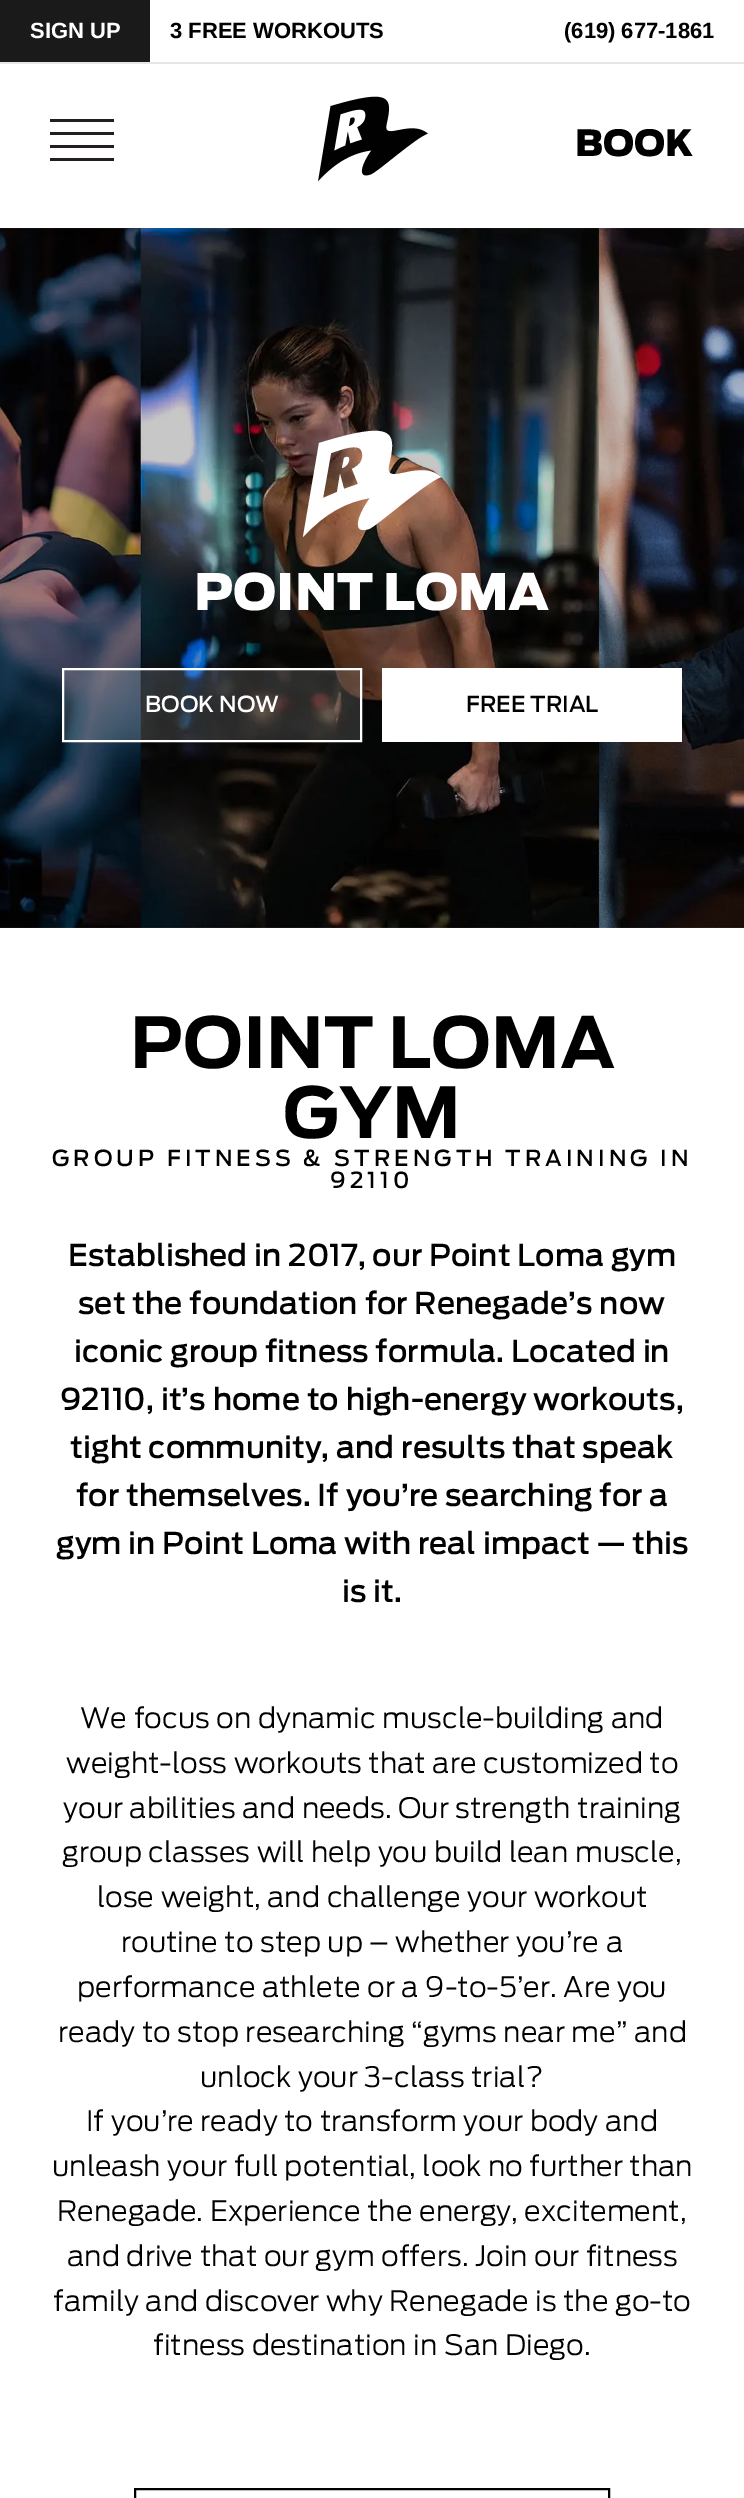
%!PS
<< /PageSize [744 2498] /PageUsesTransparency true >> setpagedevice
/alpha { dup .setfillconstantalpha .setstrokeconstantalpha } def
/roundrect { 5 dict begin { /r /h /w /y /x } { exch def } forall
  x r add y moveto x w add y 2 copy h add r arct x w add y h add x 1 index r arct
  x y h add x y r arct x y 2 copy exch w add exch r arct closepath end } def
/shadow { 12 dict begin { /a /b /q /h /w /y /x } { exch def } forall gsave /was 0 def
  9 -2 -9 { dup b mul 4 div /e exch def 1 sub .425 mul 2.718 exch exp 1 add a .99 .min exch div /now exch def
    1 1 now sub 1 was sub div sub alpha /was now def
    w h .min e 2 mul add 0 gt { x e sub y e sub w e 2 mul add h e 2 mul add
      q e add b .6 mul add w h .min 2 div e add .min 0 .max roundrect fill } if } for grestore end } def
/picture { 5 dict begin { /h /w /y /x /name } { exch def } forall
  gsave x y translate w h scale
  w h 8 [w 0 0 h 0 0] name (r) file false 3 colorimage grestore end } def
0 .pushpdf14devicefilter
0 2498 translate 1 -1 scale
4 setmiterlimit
1 setgray
0 0 744 2498 rectfill
(img2.rgb) 0 228 744 700 picture
gsave
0 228 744 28 rectclip
0 setgray
0 0 744 228 0 25 0.15 shadow
grestore
0.102 setgray
0 0 150 62 rectfill
/LiberationSans-Bold [22 0 0 -22 0 0] selectfont
1 setgray
30 38 moveto (SIGN UP) show
0 setgray
170 38 moveto (3 FREE WORKOUTS) show
564 38 moveto (\(619\) 677-1861) show
0.902 setgray
0 62 744 2 rectfill
0.137 0.122 0.125 setrgbcolor
50 119 64 3 rectfill
50 132 64 3 rectfill
50 145 64 3 rectfill
50 158 64 3 rectfill
(img1.rgb) 318 96 110 86 picture
/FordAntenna-Black [36 0 0 -36 0 0] selectfont
0 setgray
575 156 moveto (BOOK) show
1 setgray
newpath 360 463 moveto 362 460 363 456 362 453 curveto 361 441 338 451 331 453 curveto 323 498 lineto 337 492 lineto 340 474 lineto 344 489 lineto 358 484 lineto 352 469 lineto 356 467 358 465 360 463 curveto 342 468 moveto 344 458 lineto 352 453 350 466 342 468 curveto closepath 319 443 moveto 303 537 lineto 326 512 347 502 370 498 curveto 359 513 350 535 369 529 curveto 378 525 425 483 441 477 curveto 419 458 384 488 389 465 curveto 397 431 394 420 319 443 curveto closepath eofill
/FordAntenna-Black [50 0 0 -50 0 0] selectfont
194 610 moveto (POINT LOMA) show
0.15 alpha
newpath 63 669 moveto 361 669 lineto 361 741 lineto 63 741 lineto closepath fill
1 alpha
2 setlinewidth
newpath 63 669 moveto 361 669 lineto 361 741 lineto 63 741 lineto closepath stroke
/FordAntenna-Medium [22 0 0 -22 0 0] selectfont
145 712 moveto (BOOK NOW) show
382 668 300 74 rectfill
0 setgray
466 712 moveto (FREE TRIAL) show
/FordAntenna-Bold [70 0 0 -70 0 0] selectfont
130 1068 moveto (POINT LOMA) show
283 1138 moveto (GYM) show
/FordAntenna-Medium [22 0 0 -22 0 0] selectfont
52 1166 moveto 4 0 (GROUP FITNESS & STRENGTH TRAINING IN) ashow
330 1188 moveto 4 0 (92110) ashow
/FordAntenna-Medium [30 0 0 -30 0 0] selectfont
68 1266 moveto (Established in 2017, our Point Loma gym) show
78 1314 moveto (set the foundation for Renegade’s now) show
74 1362 moveto (iconic group fitness formula. Located in) show
60 1410 moveto (92110, it’s home to high-energy workouts,) show
70 1458 moveto (tight community, and results that speak) show
76 1506 moveto (for themselves. If you’re searching for a) show
56 1554 moveto (gym in Point Loma with real impact — this) show
342 1602 moveto (is it.) show
/FordAntenna-Light [28 0 0 -28 0 0] selectfont
80 1728 moveto (We focus on dynamic muscle-building and) show
66 1773 moveto (weight-loss workouts that are customized to) show
63 1818 moveto (your abilities and needs. Our strength training) show
62 1862 moveto (group classes will help you build lean muscle,) show
97 1907 moveto (lose weight, and challenge your workout) show
121 1952 moveto (routine to step up – whether you’re a) show
77 1997 moveto (performance athlete or a 9-to-5’er. Are you) show
58 2042 moveto (ready to stop researching “gyms near me” and) show
200 2087 moveto (unlock your 3-class trial?) show
86 2131 moveto (If you’re ready to transform your body and) show
52 2176 moveto (unleash your full potential, look no further than) show
57 2221 moveto (Renegade. Experience the energy, excitement,) show
67 2266 moveto (and drive that our gym offers. Join our fitness) show
53 2311 moveto (family and discover why Renegade is the go-to) show
153 2355 moveto (fitness destination in San Diego.) show
135 2489 474 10 rectstroke
.poppdf14devicefilter showpage
